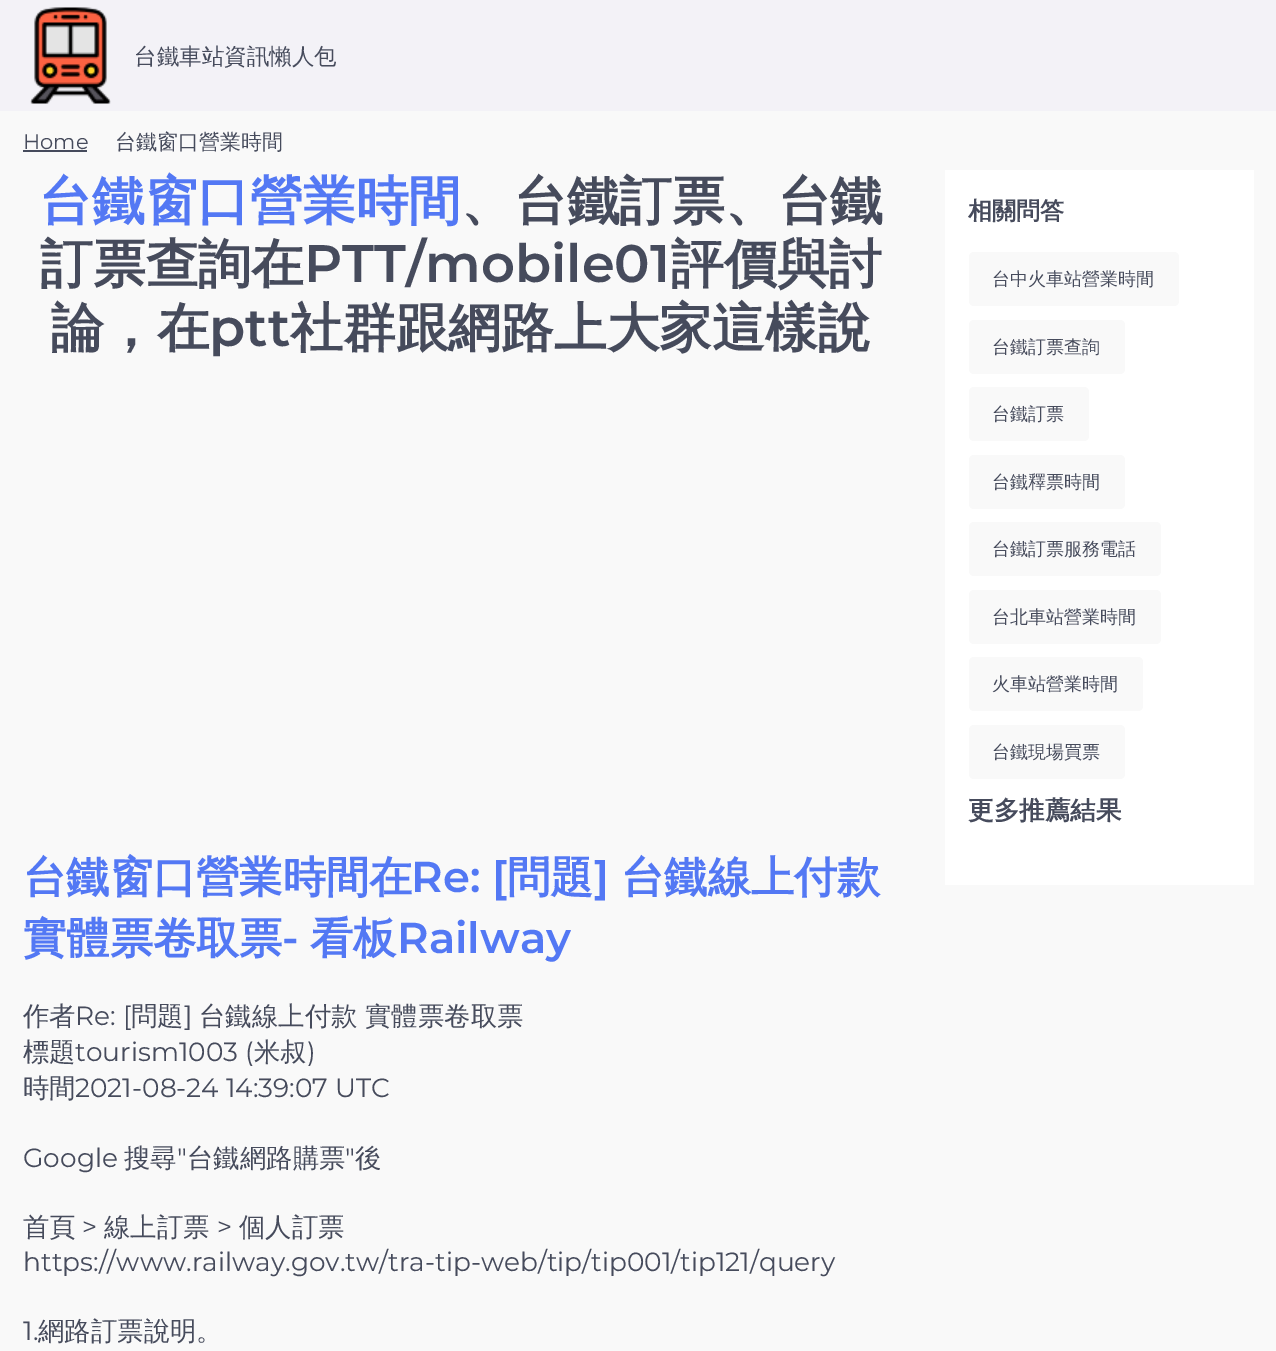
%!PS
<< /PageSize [1276 1351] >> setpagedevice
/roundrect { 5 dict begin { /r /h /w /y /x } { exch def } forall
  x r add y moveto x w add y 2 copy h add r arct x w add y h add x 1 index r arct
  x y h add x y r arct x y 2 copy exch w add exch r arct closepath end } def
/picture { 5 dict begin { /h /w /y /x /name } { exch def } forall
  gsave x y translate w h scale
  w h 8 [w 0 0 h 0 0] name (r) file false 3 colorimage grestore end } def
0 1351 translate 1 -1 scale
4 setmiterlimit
0.976 setgray
0 0 1276 1351 rectfill
0.953 0.949 0.969 setrgbcolor
0 0 1276 111 rectfill
(img1.rgb) 30 7 81 97 picture
/WenQuanYiZenHei-Medium [22.5 0 0 -22.5 0 0] selectfont
0.275 0.294 0.361 setrgbcolor
134 64 moveto (台鐵車站資訊懶人包) show
/Montserrat-Regular [21 0 0 -21 0 0] selectfont
23 149 moveto (Home) show
23 150 64 2 rectfill
/WenQuanYiZenHei-Medium [21 0 0 -21 0 0] selectfont
115 149 moveto (台鐵窗口營業時間) show
/WenQuanYiZenHei-Bold [52.75 0 0 -52.75 0 0] selectfont
0.325 0.471 0.957 setrgbcolor
39 219 moveto (台鐵窗口營業時間) show
0.275 0.294 0.361 setrgbcolor
461 219 moveto (、台鐵訂票、台鐵) show
40 282 moveto (訂票查詢在) show
/Montserrat-SemiBold [52.75 0 0 -52.75 0 0] selectfont
304 282 moveto (PTT/mobile01) show
/WenQuanYiZenHei-Bold [52.75 0 0 -52.75 0 0] selectfont
671 282 moveto (評價與討) show
51 346 moveto (論，在) show
/Montserrat-SemiBold [52.75 0 0 -52.75 0 0] selectfont
209 346 moveto (ptt) show
/WenQuanYiZenHei-Bold [52.75 0 0 -52.75 0 0] selectfont
290 346 moveto (社群跟網路上大家這樣說) show
/WenQuanYiZenHei-Bold [43.25 0 0 -43.25 0 0] selectfont
0.325 0.471 0.957 setrgbcolor
23 892 moveto (台鐵窗口營業時間在) show
/Montserrat-SemiBold [43.25 0 0 -43.25 0 0] selectfont
411 892 moveto (Re: [) show
/WenQuanYiZenHei-Bold [43.25 0 0 -43.25 0 0] selectfont
507 892 moveto (問題) show
/Montserrat-SemiBold [43.25 0 0 -43.25 0 0] selectfont
594 892 moveto (]) show
/WenQuanYiZenHei-Bold [43.25 0 0 -43.25 0 0] selectfont
621 892 moveto (台鐵線上付款) show
23 953 moveto (實體票卷取票) show
/Montserrat-SemiBold [43.25 0 0 -43.25 0 0] selectfont
282 953 moveto (-) show
/WenQuanYiZenHei-Bold [43.25 0 0 -43.25 0 0] selectfont
310 953 moveto (看板) show
/Montserrat-SemiBold [43.25 0 0 -43.25 0 0] selectfont
397 953 moveto (Railway) show
/WenQuanYiZenHei-Medium [26.4 0 0 -26.4 0 0] selectfont
0.275 0.294 0.361 setrgbcolor
23 1025 moveto (作者) show
/Montserrat-Regular [26.4 0 0 -26.4 0 0] selectfont
75 1025 moveto (Re: [) show
/WenQuanYiZenHei-Medium [26.4 0 0 -26.4 0 0] selectfont
131 1025 moveto (問題) show
/Montserrat-Regular [26.4 0 0 -26.4 0 0] selectfont
184 1025 moveto (]) show
/WenQuanYiZenHei-Medium [26.4 0 0 -26.4 0 0] selectfont
199 1025 moveto (台鐵線上付款) show
365 1025 moveto (實體票卷取票) show
23 1061 moveto (標題) show
/Montserrat-Regular [26.4 0 0 -26.4 0 0] selectfont
75 1061 moveto (tourism1003 \() show
/WenQuanYiZenHei-Medium [26.4 0 0 -26.4 0 0] selectfont
254 1061 moveto (米叔) show
/Montserrat-Regular [26.4 0 0 -26.4 0 0] selectfont
307 1061 moveto (\)) show
/WenQuanYiZenHei-Medium [26.4 0 0 -26.4 0 0] selectfont
23 1097 moveto (時間) show
/Montserrat-Regular [26.4 0 0 -26.4 0 0] selectfont
75 1097 moveto (2021-08-24 14:39:07 UTC) show
23 1167 moveto (Google) show
/WenQuanYiZenHei-Medium [26.4 0 0 -26.4 0 0] selectfont
124 1167 moveto (搜尋) show
/Montserrat-Regular [26.4 0 0 -26.4 0 0] selectfont
177 1167 moveto (") show
/WenQuanYiZenHei-Medium [26.4 0 0 -26.4 0 0] selectfont
187 1167 moveto (台鐵網路購票) show
/Montserrat-Regular [26.4 0 0 -26.4 0 0] selectfont
345 1167 moveto (") show
/WenQuanYiZenHei-Medium [26.4 0 0 -26.4 0 0] selectfont
355 1167 moveto (後) show
23 1236 moveto (首頁) show
/Montserrat-Regular [26.4 0 0 -26.4 0 0] selectfont
82 1236 moveto (>) show
/WenQuanYiZenHei-Medium [26.4 0 0 -26.4 0 0] selectfont
104 1236 moveto (線上訂票) show
/Montserrat-Regular [26.4 0 0 -26.4 0 0] selectfont
217 1236 moveto (>) show
/WenQuanYiZenHei-Medium [26.4 0 0 -26.4 0 0] selectfont
239 1236 moveto (個人訂票) show
/Montserrat-Regular [26.4 0 0 -26.4 0 0] selectfont
23 1271 moveto (https://www.railway.gov.tw/tra-tip-web/tip/tip001/tip121/query) show
23 1340 moveto (1.) show
/WenQuanYiZenHei-Medium [26.4 0 0 -26.4 0 0] selectfont
38 1340 moveto (網路訂票說明。) show
1 setgray
945 170 309 715 rectfill
/WenQuanYiZenHei-Bold [24 0 0 -24 0 0] selectfont
0.275 0.294 0.361 setrgbcolor
968 219 moveto (相關問答) show
0.976 setgray
969 252 210 54 5 roundrect fill
/WenQuanYiZenHei-Medium [18 0 0 -18 0 0] selectfont
0.275 0.294 0.361 setrgbcolor
992 285 moveto (台中火車站營業時間) show
0.976 setgray
969 320 156 54 5 roundrect fill
0.275 0.294 0.361 setrgbcolor
992 353 moveto (台鐵訂票查詢) show
0.976 setgray
969 387 120 54 5 roundrect fill
0.275 0.294 0.361 setrgbcolor
992 420 moveto (台鐵訂票) show
0.976 setgray
969 455 156 54 5 roundrect fill
0.275 0.294 0.361 setrgbcolor
992 488 moveto (台鐵釋票時間) show
0.976 setgray
969 522 192 54 5 roundrect fill
0.275 0.294 0.361 setrgbcolor
992 555 moveto (台鐵訂票服務電話) show
0.976 setgray
969 590 192 54 5 roundrect fill
0.275 0.294 0.361 setrgbcolor
992 623 moveto (台北車站營業時間) show
0.976 setgray
969 657 174 54 5 roundrect fill
0.275 0.294 0.361 setrgbcolor
992 690 moveto (火車站營業時間) show
0.976 setgray
969 725 156 54 5 roundrect fill
0.275 0.294 0.361 setrgbcolor
992 758 moveto (台鐵現場買票) show
/WenQuanYiZenHei-Bold [25.5 0 0 -25.5 0 0] selectfont
968 819 moveto (更多推薦結果) show
showpage
